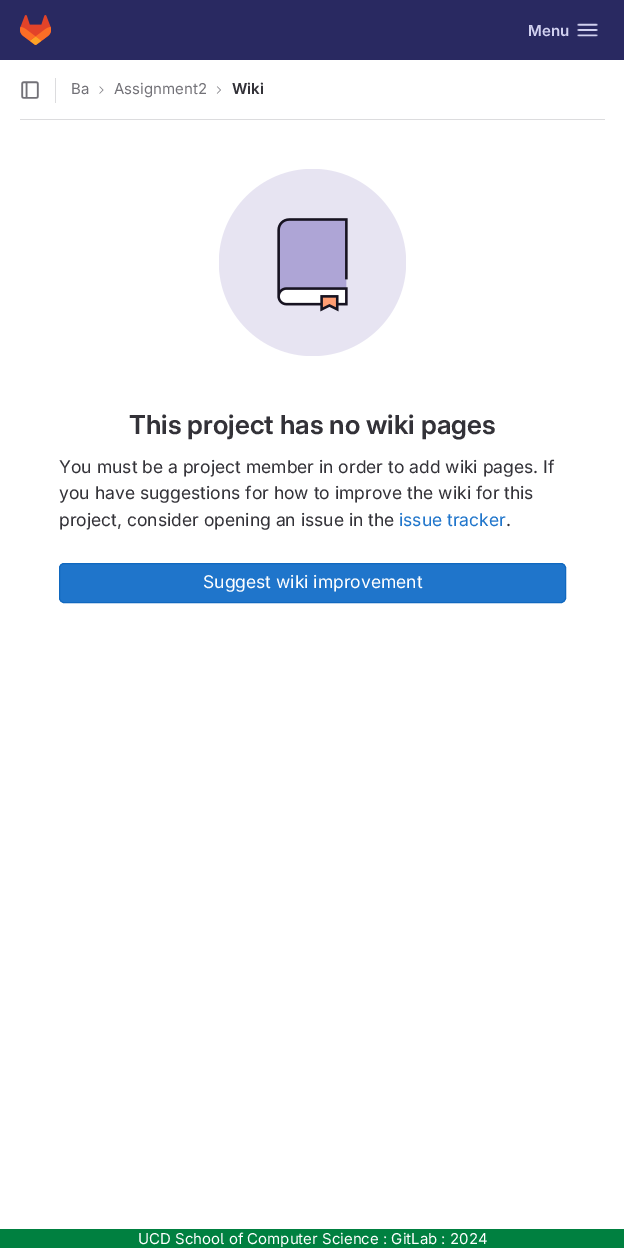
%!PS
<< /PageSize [624 1248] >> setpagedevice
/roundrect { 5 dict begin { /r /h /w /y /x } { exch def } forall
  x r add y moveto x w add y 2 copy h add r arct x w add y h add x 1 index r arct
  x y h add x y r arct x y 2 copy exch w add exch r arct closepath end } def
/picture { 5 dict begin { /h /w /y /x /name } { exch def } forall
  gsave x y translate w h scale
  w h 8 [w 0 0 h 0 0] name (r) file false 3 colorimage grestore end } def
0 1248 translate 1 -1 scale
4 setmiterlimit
1 setgray
0 0 624 1248 rectfill
0.161 0.161 0.38 setrgbcolor
0 0 624 60 rectfill
(img1.rgb) 20 15 31 30 picture
/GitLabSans-SemiBold [15 0 0 -15 0 0] selectfont
0.82 0.82 0.941 setrgbcolor
528 36 moveto (Menu) show
(img2.rgb) 577 23 21 14 picture
0.863 0.863 0.871 setrgbcolor
20 119 585 1 rectfill
(img3.rgb) 21 81 18 18 picture
55 78 1 25 rectfill
/GitLabSans-Regular [15 0 0 -15 0 0] selectfont
0.451 0.447 0.471 setrgbcolor
71 94 moveto (Ba) show
(img4.rgb) 99 86 5 8 picture
114 94 moveto (Assignment2) show
(img5.rgb) 216 86 5 8 picture
/GitLabSans-SemiBold [15 0 0 -15 0 0] selectfont
0.2 0.196 0.22 setrgbcolor
232 94 moveto (Wiki) show
(img6.rgb) 219 169 187 187 picture
/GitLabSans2-SemiBold [26.25 0 0 -26.25 0 0] selectfont
129 434 moveto (This project has no wiki pages) show
/GitLabSans-Regular [17.5 0 0 -17.5 0 0] selectfont
59 473 moveto (You must be a project member in order to add wiki pages. If) show
59 499 moveto (you have suggestions for how to improve the wiki for this) show
59 526 moveto (project, consider opening an issue in the) show
0.122 0.459 0.796 setrgbcolor
399 526 moveto (issue tracker) show
0.2 0.196 0.22 setrgbcolor
506 526 moveto (.) show
0.122 0.459 0.796 setrgbcolor
59.5 563.5 506 39 4.5 roundrect gsave fill grestore
0.063 0.408 0.749 setrgbcolor
stroke
1 setgray
203 588 moveto (Suggest wiki improvement) show
0 0.502 0.251 setrgbcolor
0 1229 624 19 rectfill
/GitLabSans-Regular [15 0 0 -15 0 0] selectfont
1 setgray
138 1244 moveto (UCD School of Computer Science : GitLab : 2024) show
showpage
